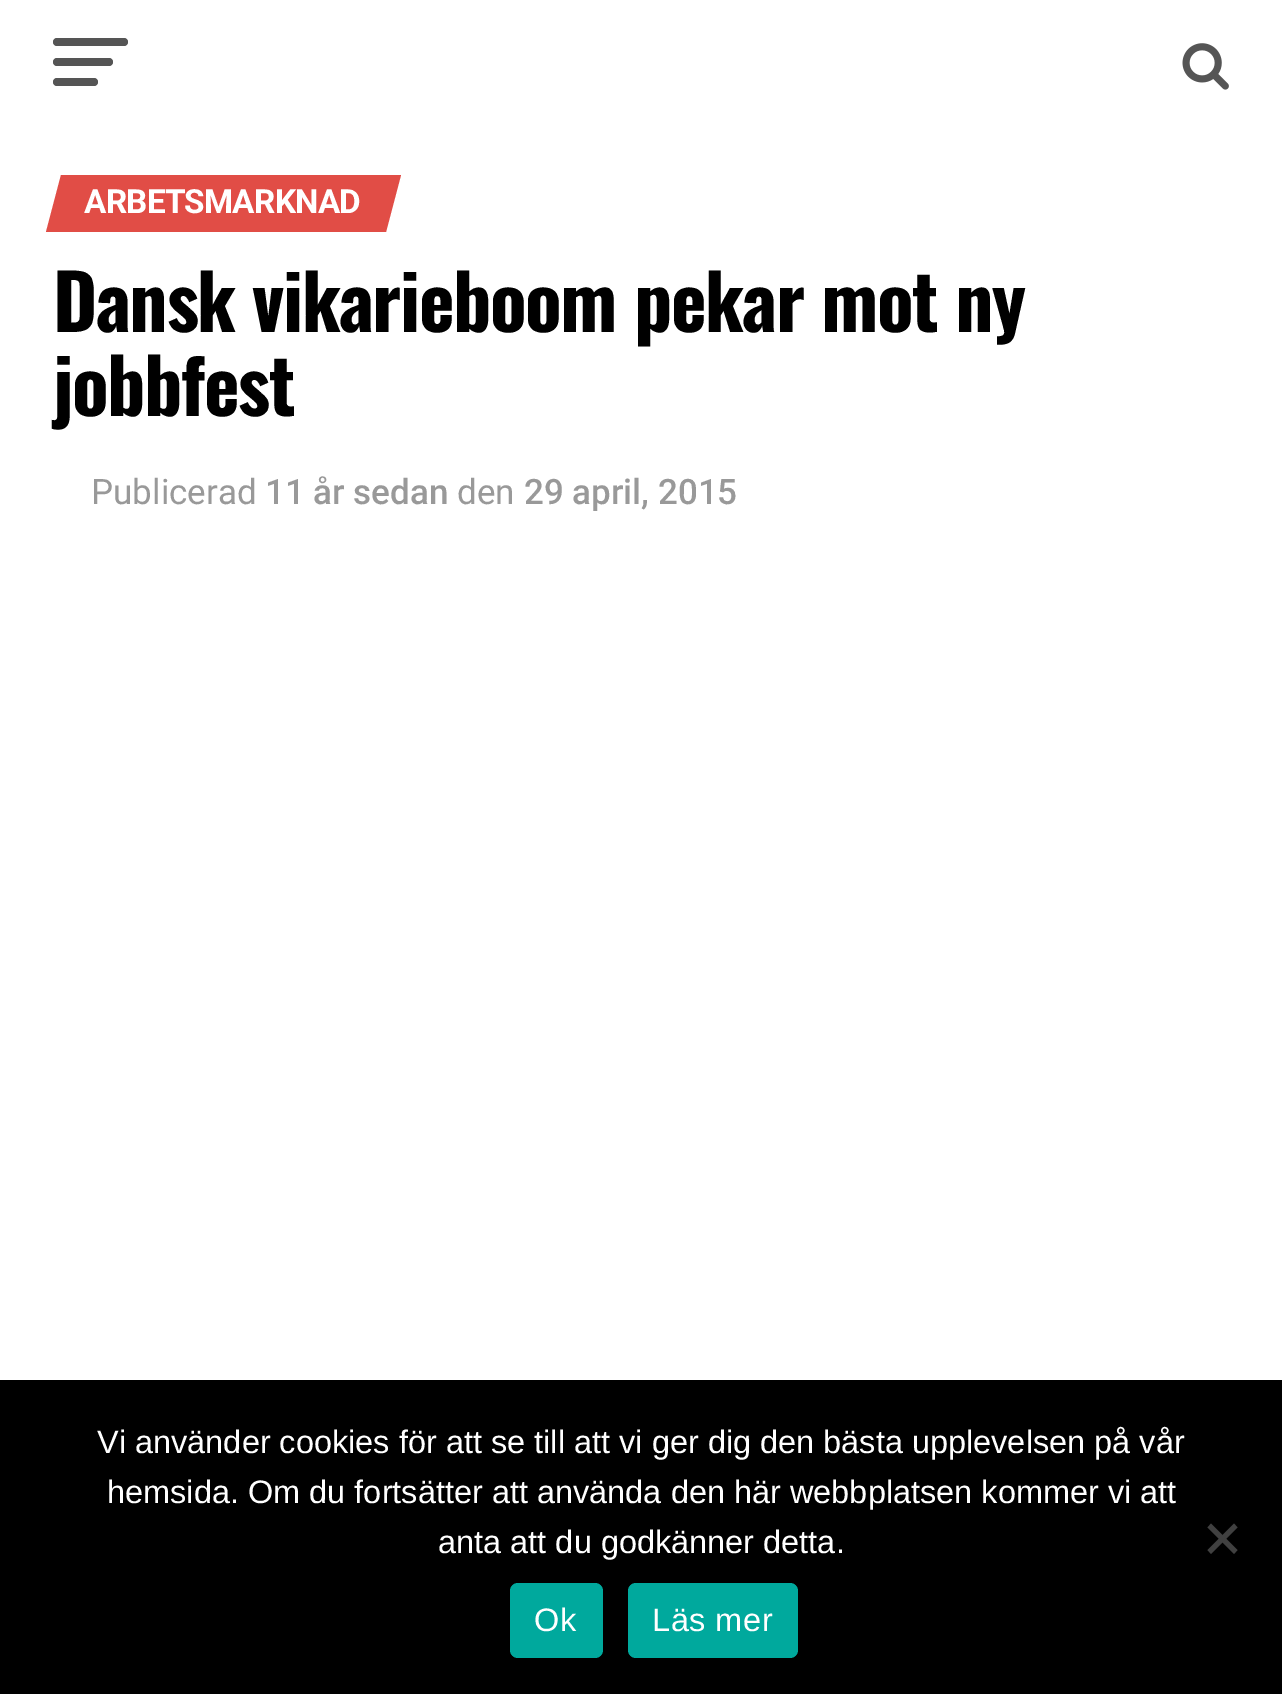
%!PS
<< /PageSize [1282 1694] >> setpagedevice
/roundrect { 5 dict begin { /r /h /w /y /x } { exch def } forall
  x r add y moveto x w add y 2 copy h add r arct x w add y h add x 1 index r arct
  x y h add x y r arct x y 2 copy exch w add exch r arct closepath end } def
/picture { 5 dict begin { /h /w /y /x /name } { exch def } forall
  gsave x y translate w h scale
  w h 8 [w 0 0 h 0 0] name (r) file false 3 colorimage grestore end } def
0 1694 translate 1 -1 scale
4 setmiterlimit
1 setgray
0 0 1282 1694 rectfill
0.333 setgray
53 38 75 8 4 roundrect fill
53 58 60 8 4 roundrect fill
53 78 45 8 4 roundrect fill
(img1.rgb) 1182 43 47 47 picture
0.882 0.302 0.275 setrgbcolor
newpath 61 175 moveto 401 175 lineto 386 232 lineto 46 232 lineto closepath fill
/Roboto-Bold [33.25 0 0 -33.25 0 0] selectfont
1 setgray
84 213 moveto -0.75 0 (ARBETSMARKNAD) ashow
/Oswald-Bold [76 0 0 -76 0 0] selectfont
0 setgray
53 332 moveto -1.5 0 (Dansk vikarieboom pekar mot ny) ashow
53 416 moveto -1.5 0 (jobbfest) ashow
/Roboto-Regular [35 0 0 -35 0 0] selectfont
0.6 setgray
91 504 moveto (Publicerad) show
/Roboto-Medium [35 0 0 -35 0 0] selectfont
265 504 moveto (11 år sedan) show
/Roboto-Regular [35 0 0 -35 0 0] selectfont
457 504 moveto (den) show
/Roboto-Medium [35 0 0 -35 0 0] selectfont
524 504 moveto (29 april, 2015) show
0 setgray
0 1380 1282 314 rectfill
/LiberationSans-Regular [32.5 0 0 -32.5 0 0] selectfont
1 setgray
97 1453 moveto (Vi använder cookies för att se till att vi ger dig den bästa upplevelsen på vår) show
107 1503 moveto (hemsida. Om du fortsätter att använda den här webbplatsen kommer vi att) show
438 1553 moveto (anta att du godkänner detta.) show
0.251 setgray
newpath 1234 1523.5 moveto 1237.5 1527.5 lineto 1211 1554 lineto 1207.5 1550 lineto closepath fill
newpath 1207.5 1527.5 moveto 1211 1523.5 lineto 1237.5 1550 lineto 1234 1554 lineto closepath fill
0 0.663 0.616 setrgbcolor
510 1583 93 75 8 roundrect fill
1 setgray
534 1631 moveto 0.5 0 (Ok) ashow
0 0.663 0.616 setrgbcolor
628 1583 170 75 8 roundrect fill
1 setgray
652 1631 moveto 0.5 0 (Läs mer) ashow
showpage
